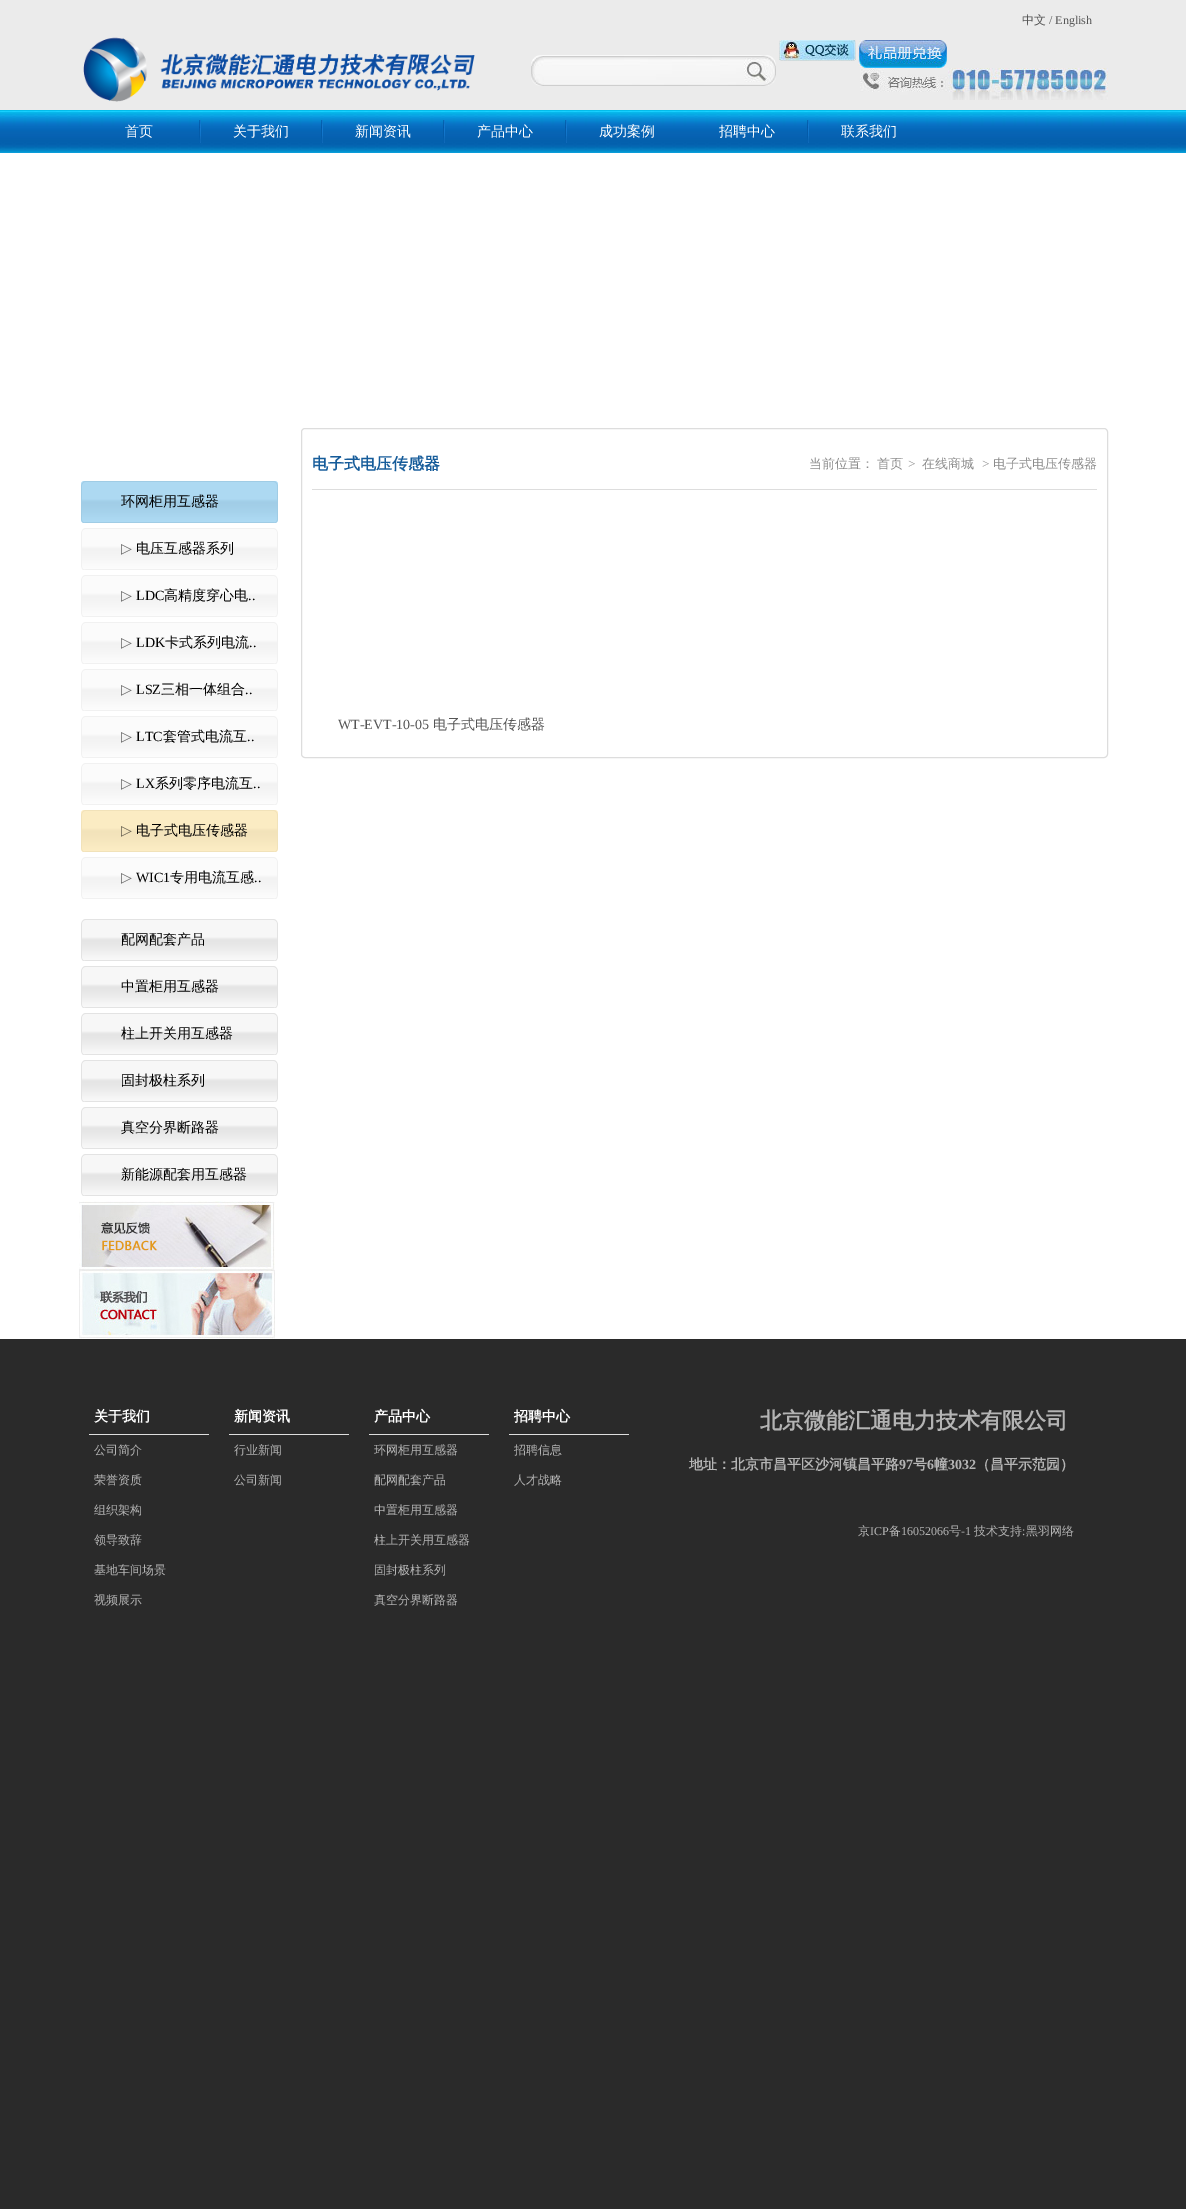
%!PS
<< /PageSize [1186 2209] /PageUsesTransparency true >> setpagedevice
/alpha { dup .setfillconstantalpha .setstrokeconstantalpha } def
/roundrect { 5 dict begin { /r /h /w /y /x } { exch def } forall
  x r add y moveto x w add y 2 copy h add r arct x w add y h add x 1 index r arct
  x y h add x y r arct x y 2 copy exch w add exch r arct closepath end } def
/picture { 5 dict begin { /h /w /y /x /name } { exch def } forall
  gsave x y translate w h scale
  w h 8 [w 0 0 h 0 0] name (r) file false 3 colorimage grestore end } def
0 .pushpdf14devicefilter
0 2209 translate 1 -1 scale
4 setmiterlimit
0.165 setgray
0 0 1186 2209 rectfill
0.922 setgray
0 0 1186 110 rectfill
/WenQuanYiZenHei-Medium [12 0 0 -12 0 0] selectfont
0.333 setgray
1022 24 moveto (中文) show
/LiberationSerif-Regular [12 0 0 -12 0 0] selectfont
1049 24 moveto (/ English) show
(img1.rgb) 83 37 392 65 picture
(img2.rgb) 531 55 245 31 picture
(img3.rgb) 779 40 77 21 picture
(img4.rgb) 858 40 89 28 picture
(img5.rgb) 860 68 248 32 picture
(img6.rgb) 0 110 1186 43 picture
/WenQuanYiZenHei-Medium [14 0 0 -14 0 0] selectfont
1 setgray
125 136 moveto (首页) show
(img7.rgb) 199 120 2 23 picture
233 136 moveto (关于我们) show
(img7.rgb) 321 120 2 23 picture
355 136 moveto (新闻资讯) show
(img7.rgb) 443 120 2 23 picture
477 136 moveto (产品中心) show
(img7.rgb) 565 120 2 23 picture
599 136 moveto (成功案例) show
719 136 moveto (招聘中心) show
(img7.rgb) 807 120 2 23 picture
841 136 moveto (联系我们) show
0 153 1186 1186 rectfill
(img8.rgb) 81 481 197 42 picture
0.35 alpha
0.133 0.631 0.918 setrgbcolor
81 481 197 42 3 roundrect fill
1 alpha
0 setgray
121 506 moveto (环网柜用互感器) show
(img8.rgb) 81 528 197 42 picture
0.5 alpha
1 setgray
81 528 197 42 3 roundrect fill
/DejaVuSans-Regular [14 0 0 -14 0 0] selectfont
1 alpha
0.384 setgray
121 553 moveto (▷) show
/WenQuanYiZenHei-Medium [14 0 0 -14 0 0] selectfont
0 setgray
136 553 moveto (电压互感器系列) show
(img8.rgb) 81 575 197 42 picture
0.5 alpha
1 setgray
81 575 197 42 3 roundrect fill
/DejaVuSans-Regular [14 0 0 -14 0 0] selectfont
1 alpha
0.384 setgray
121 600 moveto (▷) show
/LiberationSerif-Regular [14 0 0 -14 0 0] selectfont
0 setgray
136 600 moveto (LDC) show
/WenQuanYiZenHei-Medium [14 0 0 -14 0 0] selectfont
164 600 moveto (高精度穿心电) show
/LiberationSerif-Regular [14 0 0 -14 0 0] selectfont
248 600 moveto (..) show
(img8.rgb) 81 622 197 42 picture
0.5 alpha
1 setgray
81 622 197 42 3 roundrect fill
/DejaVuSans-Regular [14 0 0 -14 0 0] selectfont
1 alpha
0.384 setgray
121 647 moveto (▷) show
/LiberationSerif-Regular [14 0 0 -14 0 0] selectfont
0 setgray
136 647 moveto (LDK) show
/WenQuanYiZenHei-Medium [14 0 0 -14 0 0] selectfont
165 647 moveto (卡式系列电流) show
/LiberationSerif-Regular [14 0 0 -14 0 0] selectfont
249 647 moveto (..) show
(img8.rgb) 81 669 197 42 picture
0.5 alpha
1 setgray
81 669 197 42 3 roundrect fill
/DejaVuSans-Regular [14 0 0 -14 0 0] selectfont
1 alpha
0.384 setgray
121 694 moveto (▷) show
/LiberationSerif-Regular [14 0 0 -14 0 0] selectfont
0 setgray
136 694 moveto (LSZ) show
/WenQuanYiZenHei-Medium [14 0 0 -14 0 0] selectfont
161 694 moveto (三相一体组合) show
/LiberationSerif-Regular [14 0 0 -14 0 0] selectfont
245 694 moveto (..) show
(img8.rgb) 81 716 197 42 picture
0.5 alpha
1 setgray
81 716 197 42 3 roundrect fill
/DejaVuSans-Regular [14 0 0 -14 0 0] selectfont
1 alpha
0.384 setgray
121 741 moveto (▷) show
/LiberationSerif-Regular [14 0 0 -14 0 0] selectfont
0 setgray
136 741 moveto (LTC) show
/WenQuanYiZenHei-Medium [14 0 0 -14 0 0] selectfont
163 741 moveto (套管式电流互) show
/LiberationSerif-Regular [14 0 0 -14 0 0] selectfont
247 741 moveto (..) show
(img8.rgb) 81 763 197 42 picture
0.5 alpha
1 setgray
81 763 197 42 3 roundrect fill
/DejaVuSans-Regular [14 0 0 -14 0 0] selectfont
1 alpha
0.384 setgray
121 788 moveto (▷) show
/LiberationSerif-Regular [14 0 0 -14 0 0] selectfont
0 setgray
136 788 moveto (LX) show
/WenQuanYiZenHei-Medium [14 0 0 -14 0 0] selectfont
155 788 moveto (系列零序电流互) show
/LiberationSerif-Regular [14 0 0 -14 0 0] selectfont
253 788 moveto (..) show
(img8.rgb) 81 810 197 42 picture
0.5 alpha
1 0.882 0.565 setrgbcolor
81 810 197 42 3 roundrect fill
/DejaVuSans-Regular [14 0 0 -14 0 0] selectfont
1 alpha
0.384 0.361 0.298 setrgbcolor
121 835 moveto (▷) show
/WenQuanYiZenHei-Medium [14 0 0 -14 0 0] selectfont
0 setgray
136 835 moveto (电子式电压传感器) show
(img8.rgb) 81 857 197 42 picture
0.5 alpha
1 setgray
81 857 197 42 3 roundrect fill
/DejaVuSans-Regular [14 0 0 -14 0 0] selectfont
1 alpha
0.384 setgray
121 882 moveto (▷) show
/LiberationSerif-Regular [14 0 0 -14 0 0] selectfont
0 setgray
136 882 moveto (WIC1) show
/WenQuanYiZenHei-Medium [14 0 0 -14 0 0] selectfont
170 882 moveto (专用电流互感) show
/LiberationSerif-Regular [14 0 0 -14 0 0] selectfont
254 882 moveto (..) show
(img8.rgb) 81 919 197 42 picture
/WenQuanYiZenHei-Medium [14 0 0 -14 0 0] selectfont
121 944 moveto (配网配套产品) show
(img8.rgb) 81 966 197 42 picture
121 991 moveto (中置柜用互感器) show
(img8.rgb) 81 1013 197 42 picture
121 1038 moveto (柱上开关用互感器) show
(img8.rgb) 81 1060 197 42 picture
121 1085 moveto (固封极柱系列) show
(img8.rgb) 81 1107 197 42 picture
121 1132 moveto (真空分界断路器) show
(img8.rgb) 81 1154 197 42 picture
121 1179 moveto (新能源配套用互感器) show
(img9.rgb) 79 1201 196 69 picture
(img10.rgb) 79 1270 196 69 picture
0.867 setgray
301.5 428.5 806 329 3.5 roundrect stroke
312 489 785 1 rectfill
/WenQuanYiZenHei-Bold [16 0 0 -16 0 0] selectfont
0.086 0.361 0.604 setrgbcolor
312 469 moveto (电子式电压传感器) show
/WenQuanYiZenHei-Medium [13 0 0 -13 0 0] selectfont
0.549 setgray
809 468 moveto (当前位置：) show
877 468 moveto (首页) show
/LiberationSerif-Regular [13 0 0 -13 0 0] selectfont
908 468 moveto (>) show
/WenQuanYiZenHei-Medium [13 0 0 -13 0 0] selectfont
922 468 moveto (在线商城) show
/LiberationSerif-Regular [13 0 0 -13 0 0] selectfont
982 468 moveto (>) show
/WenQuanYiZenHei-Medium [13 0 0 -13 0 0] selectfont
993 468 moveto (电子式电压传感器) show
/LiberationSerif-Regular [14 0 0 -14 0 0] selectfont
0.333 setgray
338 729 moveto (WT-EVT-10-05) show
/WenQuanYiZenHei-Medium [14 0 0 -14 0 0] selectfont
433 729 moveto (电子式电压传感器) show
0.867 setgray
89 1434 120 1 rectfill
/WenQuanYiZenHei-Bold [14 0 0 -14 0 0] selectfont
1 setgray
94 1421 moveto (关于我们) show
/WenQuanYiZenHei-Medium [12 0 0 -12 0 0] selectfont
0.706 setgray
94 1454 moveto (公司简介) show
94 1484 moveto (荣誉资质) show
94 1514 moveto (组织架构) show
94 1544 moveto (领导致辞) show
94 1574 moveto (基地车间场景) show
94 1604 moveto (视频展示) show
0.867 setgray
229 1434 120 1 rectfill
/WenQuanYiZenHei-Bold [14 0 0 -14 0 0] selectfont
1 setgray
234 1421 moveto (新闻资讯) show
/WenQuanYiZenHei-Medium [12 0 0 -12 0 0] selectfont
0.706 setgray
234 1454 moveto (行业新闻) show
234 1484 moveto (公司新闻) show
0.867 setgray
369 1434 120 1 rectfill
/WenQuanYiZenHei-Bold [14 0 0 -14 0 0] selectfont
1 setgray
374 1421 moveto (产品中心) show
/WenQuanYiZenHei-Medium [12 0 0 -12 0 0] selectfont
0.706 setgray
374 1454 moveto (环网柜用互感器) show
374 1484 moveto (配网配套产品) show
374 1514 moveto (中置柜用互感器) show
374 1544 moveto (柱上开关用互感器) show
374 1574 moveto (固封极柱系列) show
374 1604 moveto (真空分界断路器) show
0.867 setgray
509 1434 120 1 rectfill
/WenQuanYiZenHei-Bold [14 0 0 -14 0 0] selectfont
1 setgray
514 1421 moveto (招聘中心) show
/WenQuanYiZenHei-Medium [12 0 0 -12 0 0] selectfont
0.706 setgray
514 1454 moveto (招聘信息) show
514 1484 moveto (人才战略) show
/WenQuanYiZenHei-Bold [22 0 0 -22 0 0] selectfont
760 1428 moveto (北京微能汇通电力技术有限公司) show
/WenQuanYiZenHei-Bold [14 0 0 -14 0 0] selectfont
689 1469 moveto (地址：北京市昌平区沙河镇昌平路) show
/LiberationSerif-Bold [14 0 0 -14 0 0] selectfont
899 1469 moveto (97) show
/WenQuanYiZenHei-Bold [14 0 0 -14 0 0] selectfont
913 1469 moveto (号) show
/LiberationSerif-Bold [14 0 0 -14 0 0] selectfont
927 1469 moveto (6) show
/WenQuanYiZenHei-Bold [14 0 0 -14 0 0] selectfont
934 1469 moveto (幢) show
/LiberationSerif-Bold [14 0 0 -14 0 0] selectfont
948 1469 moveto (3032) show
/WenQuanYiZenHei-Bold [14 0 0 -14 0 0] selectfont
976 1469 moveto (（昌平示范园）) show
/WenQuanYiZenHei-Medium [12 0 0 -12 0 0] selectfont
858 1535 moveto (京) show
/LiberationSerif-Regular [12 0 0 -12 0 0] selectfont
870 1535 moveto (ICP) show
/WenQuanYiZenHei-Medium [12 0 0 -12 0 0] selectfont
889 1535 moveto (备) show
/LiberationSerif-Regular [12 0 0 -12 0 0] selectfont
901 1535 moveto (16052066) show
/WenQuanYiZenHei-Medium [12 0 0 -12 0 0] selectfont
949 1535 moveto (号) show
/LiberationSerif-Regular [12 0 0 -12 0 0] selectfont
961 1535 moveto (-1) show
/WenQuanYiZenHei-Medium [12 0 0 -12 0 0] selectfont
974 1535 moveto (技术支持 黑羽网络) show
/LiberationSerif-Regular [12 0 0 -12 0 0] selectfont
1022 1535 moveto (:) show
.poppdf14devicefilter showpage
